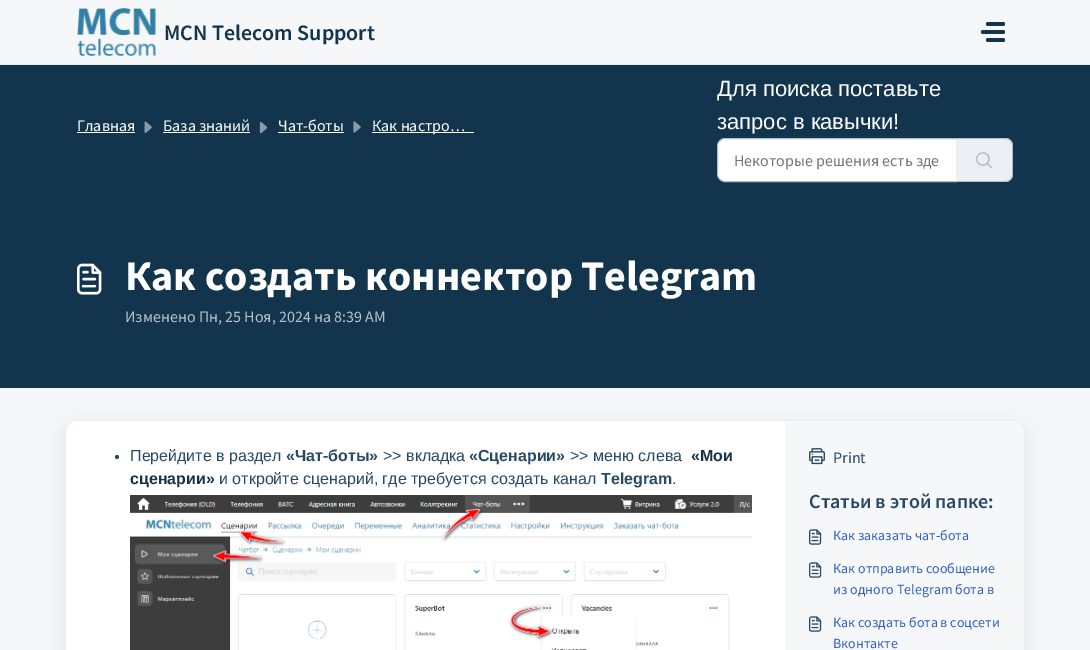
%!PS
<< /PageSize [1090 650] /PageUsesTransparency true >> setpagedevice
/alpha { dup .setfillconstantalpha .setstrokeconstantalpha } def
/roundrect { 5 dict begin { /r /h /w /y /x } { exch def } forall
  x r add y moveto x w add y 2 copy h add r arct x w add y h add x 1 index r arct
  x y h add x y r arct x y 2 copy exch w add exch r arct closepath end } def
/shadow { 12 dict begin { /a /b /q /h /w /y /x } { exch def } forall gsave /was 0 def
  9 -2 -9 { dup b mul 4 div /e exch def 1 sub .425 mul 2.718 exch exp 1 add a .99 .min exch div /now exch def
    1 1 now sub 1 was sub div sub alpha /was now def
    w h .min e 2 mul add 0 gt { x e sub y e sub w e 2 mul add h e 2 mul add
      q e add b .6 mul add w h .min 2 div e add .min 0 .max roundrect fill } if } for grestore end } def
/picture { 5 dict begin { /h /w /y /x /name } { exch def } forall
  gsave x y translate w h scale
  w h 8 [w 0 0 h 0 0] name (r) file false 3 colorimage grestore end } def
0 .pushpdf14devicefilter
0 650 translate 1 -1 scale
4 setmiterlimit
0.961 0.969 0.976 setrgbcolor
0 0 1090 650 rectfill
0.922 0.937 0.953 setrgbcolor
0 64 1090 1 rectfill
(img1.rgb) 77 8 79 48 picture
/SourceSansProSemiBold-SemiBold [22 0 0 -22 0 0] selectfont
0.071 0.204 0.302 setrgbcolor
164 40 moveto (MCN Telecom Support) show
986 22 19 4 2 roundrect fill
981 30 24 4 2 roundrect fill
986 38 19 4 2 roundrect fill
0 65 1090 323 rectfill
/SourceSansPro-Regular [16 0 0 -16 0 0] selectfont
1 setgray
77 131 moveto (Главная) show
77 132 58 1 rectfill
(img2.rgb) 144 121 8 12 picture
163 131 moveto (База знаний) show
163 132 87 1 rectfill
(img3.rgb) 259 121 9 13 picture
278 131 moveto (Чат-боты) show
278 132 66 1 rectfill
(img4.rgb) 353 121 8 12 picture
372 132 102 1 rectfill
372 131 moveto (Как настро…) show
/LiberationSans-Regular [22 0 0 -22 0 0] selectfont
717 96 moveto (Для поиска поставьте) show
717 129 moveto (запрос в кавычки!) show
newpath 725 138.5 moveto 956.5 138.5 lineto 956.5 181.5 lineto 725 181.5 lineto 721 181.5 717.5 178 717.5 174 curveto 717.5 146 lineto 717.5 142 721 138.5 725 138.5 curveto closepath gsave fill grestore
0.694 0.741 0.784 setrgbcolor
stroke
/SourceSansPro-Regular [16 0 0 -16 0 0] selectfont
0.424 0.459 0.49 setrgbcolor
734 166 moveto (Некоторые решения есть зде) show
0.922 0.937 0.953 setrgbcolor
newpath 956 138 moveto 1005 138 lineto 1009.5 138 1013 141.5 1013 146 curveto 1013 174 lineto 1013 178.5 1009.5 182 1005 182 curveto 956 182 lineto closepath fill
0.694 0.741 0.784 setrgbcolor
newpath 956 138 moveto 1005 138 lineto 1009 138 1013 142 1013 146 curveto 1013 174 lineto 1013 178 1009 182 1005 182 curveto 956 182 lineto closepath 956 139 moveto 1005 139 lineto 1009 139 1012 142 1012 146 curveto 1012 174 lineto 1012 178 1009 181 1005 181 curveto 956 181 lineto closepath eofill
(img5.rgb) 976 152 16 17 picture
(img6.rgb) 77 263 25 32 picture
/SourceSansPro-Bold [42 0 0 -42 0 0] selectfont
1 setgray
125 290 moveto (Как создать коннектор Telegram) show
/SourceSansPro-Regular [16 0 0 -16 0 0] selectfont
0.722 0.761 0.792 setrgbcolor
125 322 moveto (Изменено Пн, 25 Ноя, 2024 на 8:39 AM) show
0.153 0.192 0.227 setrgbcolor
65 426 960 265 12 9.5 0.1 shadow
1 setgray
65.5 420.5 959 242 11.5 roundrect gsave fill grestore
0.922 0.937 0.953 setrgbcolor
stroke
0.149 0.286 0.4 setrgbcolor
newpath 117 457 2 0 360 arc closepath fill
/LiberationSans-Regular [16 0 0 -16 0 0] selectfont
130 461 moveto (Перейдите в раздел) show
/LiberationSans-Bold [16 0 0 -16 0 0] selectfont
286 461 moveto («Чат-боты») show
/LiberationSans-Regular [16 0 0 -16 0 0] selectfont
383 461 moveto (>> вкладка) show
/LiberationSans-Bold [16 0 0 -16 0 0] selectfont
469 461 moveto («Сценарии») show
/LiberationSans-Regular [16 0 0 -16 0 0] selectfont
570 461 moveto (>> меню слева) show
/LiberationSans-Bold [16 0 0 -16 0 0] selectfont
0.094 0.196 0.278 setrgbcolor
691 461 moveto («Мои) show
130 484 moveto (сценарии») show
/LiberationSans-Regular [16 0 0 -16 0 0] selectfont
0.149 0.286 0.4 setrgbcolor
219 484 moveto (и откройте сценарий, где требуется создать канал) show
/LiberationSans-Bold [16 0 0 -16 0 0] selectfont
601 484 moveto (Telegram) show
/LiberationSans-Regular [16 0 0 -16 0 0] selectfont
672 484 moveto (.) show
(img7.rgb) 130 495 622 155 picture
0.961 0.969 0.976 setrgbcolor
newpath 785 421 moveto 1012 421 lineto 1018.5 421 1024 426.5 1024 433 curveto 1024 650 lineto 1024 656.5 1018.5 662 1012 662 curveto 785 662 lineto closepath fill
(img8.rgb) 809 448 16 17 picture
/SourceSansPro-Regular [16 0 0 -16 0 0] selectfont
0.149 0.286 0.4 setrgbcolor
833 463 moveto (Print) show
/SourceSansProSemiBold-SemiBold [20 0 0 -20 0 0] selectfont
809 508 moveto (Статьи в этой папке:) show
(img9.rgb) 809 529 13 16 picture
/SourceSansPro-Regular [14 0 0 -14 0 0] selectfont
0.173 0.361 0.773 setrgbcolor
833 540 moveto (Как заказать чат-бота) show
(img9.rgb) 809 562 13 16 picture
833 573 moveto (Как отправить сообщение) show
833 594 moveto (из одного Telegram бота в) show
(img9.rgb) 809 616 13 16 picture
833 627 moveto (Как создать бота в соцсети) show
833 648 moveto (Вконтакте) show
.poppdf14devicefilter showpage
